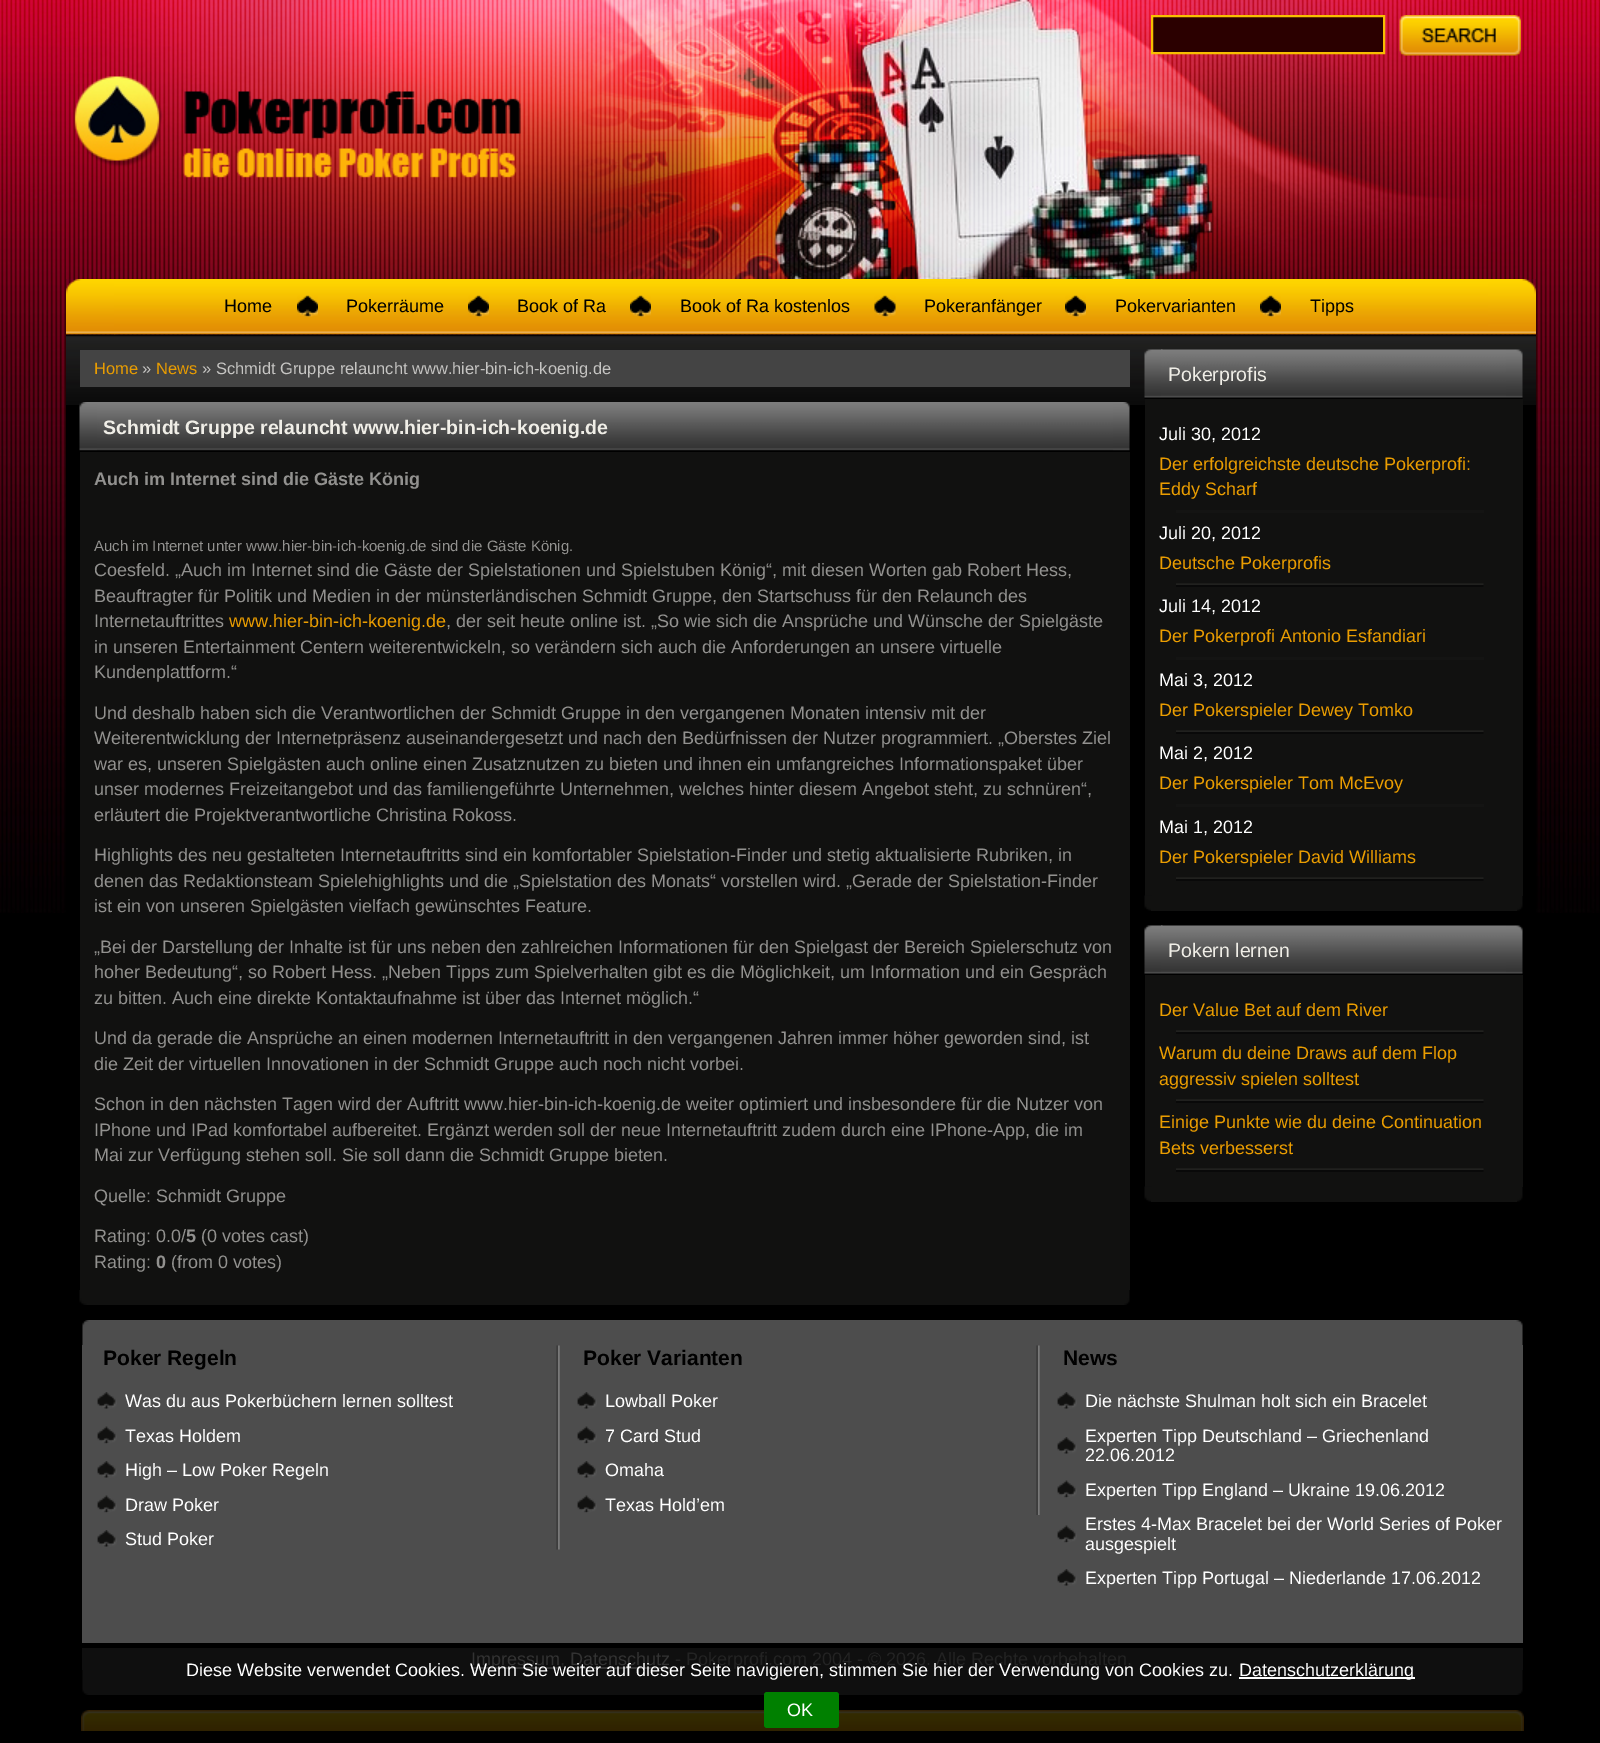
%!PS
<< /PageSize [1600 1743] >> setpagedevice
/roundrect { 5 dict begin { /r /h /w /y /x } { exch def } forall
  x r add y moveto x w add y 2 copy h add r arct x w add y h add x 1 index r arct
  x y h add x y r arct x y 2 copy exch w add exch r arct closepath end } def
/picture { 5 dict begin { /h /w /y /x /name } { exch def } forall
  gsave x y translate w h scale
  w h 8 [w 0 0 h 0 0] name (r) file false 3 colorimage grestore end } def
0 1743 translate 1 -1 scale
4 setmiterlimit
0 setgray
0 0 1600 1743 rectfill
(img1.rgb) 0 0 1600 913 picture
(img2.rgb) 66 0 1470 279 picture
0.169 0 0 setrgbcolor
newpath 1152 16 moveto 1384 16 lineto 1384 53 lineto 1152 53 lineto closepath gsave fill grestore
0.965 0.749 0.004 setrgbcolor
2 setlinewidth
stroke
(img3.rgb) 1399 15 122 42 picture
(img4.rgb) 74 76 447 102 picture
(img5.rgb) 66 279 50 56 picture
(img6.rgb) 1488 279 48 56 picture
(img7.rgb) 114 279 1374 56 picture
/LiberationSans-Regular [18 0 0 -18 0 0] selectfont
0 setgray
224 312 moveto (Home) show
(img8.rgb) 297 295 21 22 picture
346 312 moveto (Pokerräume) show
(img8.rgb) 468 295 21 22 picture
517 312 moveto (Book of Ra) show
(img9.rgb) 630 295 21 22 picture
680 312 moveto (Book of Ra kostenlos) show
(img10.rgb) 874 295 22 22 picture
924 312 moveto (Pokeranfänger) show
(img8.rgb) 1065 295 21 22 picture
1115 312 moveto (Pokervarianten) show
(img11.rgb) 1260 295 21 22 picture
1310 312 moveto (Tipps) show
66 405 1470 508 rectfill
(img12.rgb) 66 334 1470 71 picture
0.267 setgray
80 350 1050 37 rectfill
/LiberationSans-Regular [16.5 0 0 -16.5 0 0] selectfont
0.918 0.616 0.004 setrgbcolor
94 374 moveto (Home) show
0.776 0.773 0.765 setrgbcolor
142 374 moveto (») show
0.918 0.616 0.004 setrgbcolor
156 374 moveto (News) show
0.776 0.773 0.765 setrgbcolor
202 374 moveto (» Schmidt Gruppe relauncht www.hier-bin-ich-koenig.de) show
(img13.rgb) 79 402 18 49 picture
(img14.rgb) 1113 402 17 49 picture
(img15.rgb) 97 402 1016 49 picture
/LiberationSans-Bold [19.5 0 0 -19.5 0 0] selectfont
0.941 0.933 0.906 setrgbcolor
103 434 moveto (Schmidt Gruppe relauncht www.hier-bin-ich-koenig.de) show
0.067 0.067 0.063 setrgbcolor
80 452 1050 838 rectfill
/LiberationSans-Bold [18 0 0 -18 0 0] selectfont
0.573 0.569 0.561 setrgbcolor
94 485 moveto (Auch im Internet sind die Gäste König) show
/LiberationSans-Regular [15 0 0 -15 0 0] selectfont
94 551 moveto (Auch im Internet unter www.hier-bin-ich-koenig.de sind die Gäste König.) show
/LiberationSans-Regular [18 0 0 -18 0 0] selectfont
94 576 moveto (Coesfeld. „Auch im Internet sind die Gäste der Spielstationen und Spielstuben König“, mit diesen Worten gab Robert Hess,) show
94 602 moveto (Beauftragter für Politik und Medien in der münsterländischen Schmidt Gruppe, den Startschuss für den Relaunch des) show
94 627 moveto (Internetauftrittes) show
0.918 0.616 0.004 setrgbcolor
229 627 moveto (www.hier-bin-ich-koenig.de) show
0.573 0.569 0.561 setrgbcolor
446 627 moveto (, der seit heute online ist. „So wie sich die Ansprüche und Wünsche der Spielgäste) show
94 653 moveto (in unseren Entertainment Centern weiterentwickeln, so verändern sich auch die Anforderungen an unsere virtuelle) show
94 678 moveto (Kundenplattform.“) show
94 719 moveto (Und deshalb haben sich die Verantwortlichen der Schmidt Gruppe in den vergangenen Monaten intensiv mit der) show
94 744 moveto (Weiterentwicklung der Internetpräsenz auseinandergesetzt und nach den Bedürfnissen der Nutzer programmiert. „Oberstes Ziel) show
94 770 moveto (war es, unseren Spielgästen auch online einen Zusatznutzen zu bieten und ihnen ein umfangreiches Informationspaket über) show
94 795 moveto (unser modernes Freizeitangebot und das familiengeführte Unternehmen, welches hinter diesem Angebot steht, zu schnüren“,) show
94 821 moveto (erläutert die Projektverantwortliche Christina Rokoss.) show
94 861 moveto (Highlights des neu gestalteten Internetauftritts sind ein komfortabler Spielstation-Finder und stetig aktualisierte Rubriken, in) show
94 887 moveto (denen das Redaktionsteam Spielehighlights und die „Spielstation des Monats“ vorstellen wird. „Gerade der Spielstation-Finder) show
94 912 moveto (ist ein von unseren Spielgästen vielfach gewünschtes Feature.) show
94 953 moveto („Bei der Darstellung der Inhalte ist für uns neben den zahlreichen Informationen für den Spielgast der Bereich Spielerschutz von) show
94 978 moveto (hoher Bedeutung“, so Robert Hess. „Neben Tipps zum Spielverhalten gibt es die Möglichkeit, um Information und ein Gespräch) show
94 1004 moveto (zu bitten. Auch eine direkte Kontaktaufnahme ist über das Internet möglich.“) show
94 1044 moveto (Und da gerade die Ansprüche an einen modernen Internetauftritt in den vergangenen Jahren immer höher geworden sind, ist) show
94 1070 moveto (die Zeit der virtuellen Innovationen in der Schmidt Gruppe auch noch nicht vorbei.) show
94 1110 moveto (Schon in den nächsten Tagen wird der Auftritt www.hier-bin-ich-koenig.de weiter optimiert und insbesondere für die Nutzer von) show
94 1136 moveto (IPhone und IPad komfortabel aufbereitet. Ergänzt werden soll der neue Internetauftritt zudem durch eine IPhone-App, die im) show
94 1161 moveto (Mai zur Verfügung stehen soll. Sie soll dann die Schmidt Gruppe bieten.) show
94 1202 moveto (Quelle: Schmidt Gruppe) show
94 1242 moveto (Rating: 0.0/) show
/LiberationSans-Bold [18 0 0 -18 0 0] selectfont
186 1242 moveto (5) show
/LiberationSans-Regular [18 0 0 -18 0 0] selectfont
201 1242 moveto (\(0 votes cast\)) show
94 1268 moveto (Rating:) show
/LiberationSans-Bold [18 0 0 -18 0 0] selectfont
156 1268 moveto (0) show
/LiberationSans-Regular [18 0 0 -18 0 0] selectfont
171 1268 moveto (\(from 0 votes\)) show
(img16.rgb) 79 1290 8 15 picture
(img17.rgb) 1124 1290 6 15 picture
0.067 0.067 0.063 setrgbcolor
87 1290 1037 15 rectfill
(img18.rgb) 1144 349 19 50 picture
(img19.rgb) 1506 349 17 50 picture
(img20.rgb) 1161 349 345 50 picture
/LiberationSans-Regular [19.5 0 0 -19.5 0 0] selectfont
0.941 0.933 0.906 setrgbcolor
1168 381 moveto (Pokerprofis) show
0.067 0.067 0.063 setrgbcolor
1145 399 378 497 rectfill
0.078 0.078 0.075 setrgbcolor
1176 510 308 3 rectfill
/LiberationSans-Regular [18 0 0 -18 0 0] selectfont
1 setgray
1159 440 moveto (Juli 30, 2012) show
0.918 0.616 0.004 setrgbcolor
1159 470 moveto (Der erfolgreichste deutsche Pokerprofi:) show
1159 495 moveto (Eddy Scharf) show
(img21.rgb) 1176 583 308 4 picture
1 setgray
1159 539 moveto (Juli 20, 2012) show
0.918 0.616 0.004 setrgbcolor
1159 569 moveto (Deutsche Pokerprofis) show
0.078 0.078 0.075 setrgbcolor
1176 657 308 3 rectfill
1 setgray
1159 612 moveto (Juli 14, 2012) show
0.918 0.616 0.004 setrgbcolor
1159 642 moveto (Der Pokerprofi Antonio Esfandiari) show
(img21.rgb) 1176 730 308 4 picture
1 setgray
1159 686 moveto (Mai 3, 2012) show
0.918 0.616 0.004 setrgbcolor
1159 716 moveto (Der Pokerspieler Dewey Tomko) show
0.078 0.078 0.075 setrgbcolor
1176 804 308 3 rectfill
1 setgray
1159 759 moveto (Mai 2, 2012) show
0.918 0.616 0.004 setrgbcolor
1159 789 moveto (Der Pokerspieler Tom McEvoy) show
(img21.rgb) 1176 877 308 4 picture
1 setgray
1159 833 moveto (Mai 1, 2012) show
0.918 0.616 0.004 setrgbcolor
1159 863 moveto (Der Pokerspieler David Williams) show
(img22.rgb) 1144 895 8 16 picture
(img23.rgb) 1517 896 6 15 picture
0.067 0.067 0.063 setrgbcolor
1151 896 366 15 rectfill
(img24.rgb) 1144 925 19 49 picture
(img25.rgb) 1506 925 17 49 picture
(img26.rgb) 1161 925 345 49 picture
/LiberationSans-Regular [19.5 0 0 -19.5 0 0] selectfont
0.941 0.933 0.906 setrgbcolor
1168 957 moveto (Pokern lernen) show
0.067 0.067 0.063 setrgbcolor
1145 975 378 212 rectfill
(img21.rgb) 1176 1030 308 4 picture
/LiberationSans-Regular [18 0 0 -18 0 0] selectfont
0.918 0.616 0.004 setrgbcolor
1159 1016 moveto (Der Value Bet auf dem River) show
(img21.rgb) 1176 1099 308 4 picture
1159 1059 moveto (Warum du deine Draws auf dem Flop) show
1159 1085 moveto (aggressiv spielen solltest) show
(img21.rgb) 1176 1168 308 4 picture
1159 1128 moveto (Einige Punkte wie du deine Continuation) show
1159 1154 moveto (Bets verbesserst) show
(img22.rgb) 1144 1186 8 16 picture
(img23.rgb) 1517 1187 6 15 picture
0.067 0.067 0.063 setrgbcolor
1151 1187 366 15 rectfill
(img27.rgb) 82 1320 1441 25 picture
0.302 setgray
82 1345 1441 298 rectfill
0.059 setgray
82 1648 1441 22 rectfill
(img28.rgb) 556 1345 4 205 picture
/LiberationSans-Bold [21 0 0 -21 0 0] selectfont
0 setgray
103 1365 moveto (Poker Regeln) show
(img29.rgb) 97 1392 20 17 picture
/LiberationSans-Regular [18 0 0 -18 0 0] selectfont
1 setgray
125 1407 moveto (Was du aus Pokerbüchern lernen solltest) show
(img30.rgb) 97 1426 20 18 picture
125 1442 moveto (Texas Holdem) show
(img29.rgb) 97 1461 20 17 picture
125 1476 moveto (High – Low Poker Regeln) show
(img30.rgb) 97 1495 20 18 picture
125 1511 moveto (Draw Poker) show
(img29.rgb) 97 1530 20 17 picture
125 1545 moveto (Stud Poker) show
(img31.rgb) 1036 1345 4 170 picture
/LiberationSans-Bold [21 0 0 -21 0 0] selectfont
0 setgray
583 1365 moveto (Poker Varianten) show
(img29.rgb) 577 1392 20 17 picture
/LiberationSans-Regular [18 0 0 -18 0 0] selectfont
1 setgray
605 1407 moveto (Lowball Poker) show
(img30.rgb) 577 1426 20 18 picture
605 1442 moveto (7 Card Stud) show
(img29.rgb) 577 1461 20 17 picture
605 1476 moveto (Omaha) show
(img30.rgb) 577 1495 20 18 picture
605 1511 moveto (Texas Hold’em) show
/LiberationSans-Bold [21 0 0 -21 0 0] selectfont
0 setgray
1063 1365 moveto (News) show
(img29.rgb) 1057 1392 20 17 picture
/LiberationSans-Regular [18 0 0 -18 0 0] selectfont
1 setgray
1085 1407 moveto (Die nächste Shulman holt sich ein Bracelet) show
(img29.rgb) 1057 1437 20 17 picture
1085 1442 moveto (Experten Tipp Deutschland – Griechenland) show
1085 1461 moveto (22.06.2012) show
(img30.rgb) 1057 1480 20 18 picture
1085 1496 moveto (Experten Tipp England – Ukraine 19.06.2012) show
(img30.rgb) 1057 1525 20 18 picture
1085 1530 moveto (Erstes 4-Max Bracelet bei der World Series of Poker) show
1085 1550 moveto (ausgespielt) show
(img29.rgb) 1057 1569 20 17 picture
1085 1584 moveto (Experten Tipp Portugal – Niederlande 17.06.2012) show
0.2 setgray
471 1667 89 2 rectfill
471 1665 moveto (Impressum) show
0.137 setgray
560 1665 moveto (,) show
0.2 setgray
570 1665 moveto (Datenschutz) show
570 1667 101 2 rectfill
0.137 setgray
675 1665 moveto (- Pokerprofi.com 2004 - © 2026. Alle Rechte vorbehalten.) show
(img32.rgb) 82 1670 1441 25 picture
(img33.rgb) 81 1710 1443 21 picture
1 setgray
186 1676 moveto (Diese Website verwendet Cookies. Wenn Sie weiter auf dieser Seite navigieren, stimmen Sie hier der Verwendung von Cookies zu.) show
1239 1677 176 2 rectfill
1239 1676 moveto (Datenschutzerklärung) show
0 0.502 0 setrgbcolor
764 1692 75 36 3 roundrect fill
1 setgray
787 1716 moveto (OK) show
showpage
